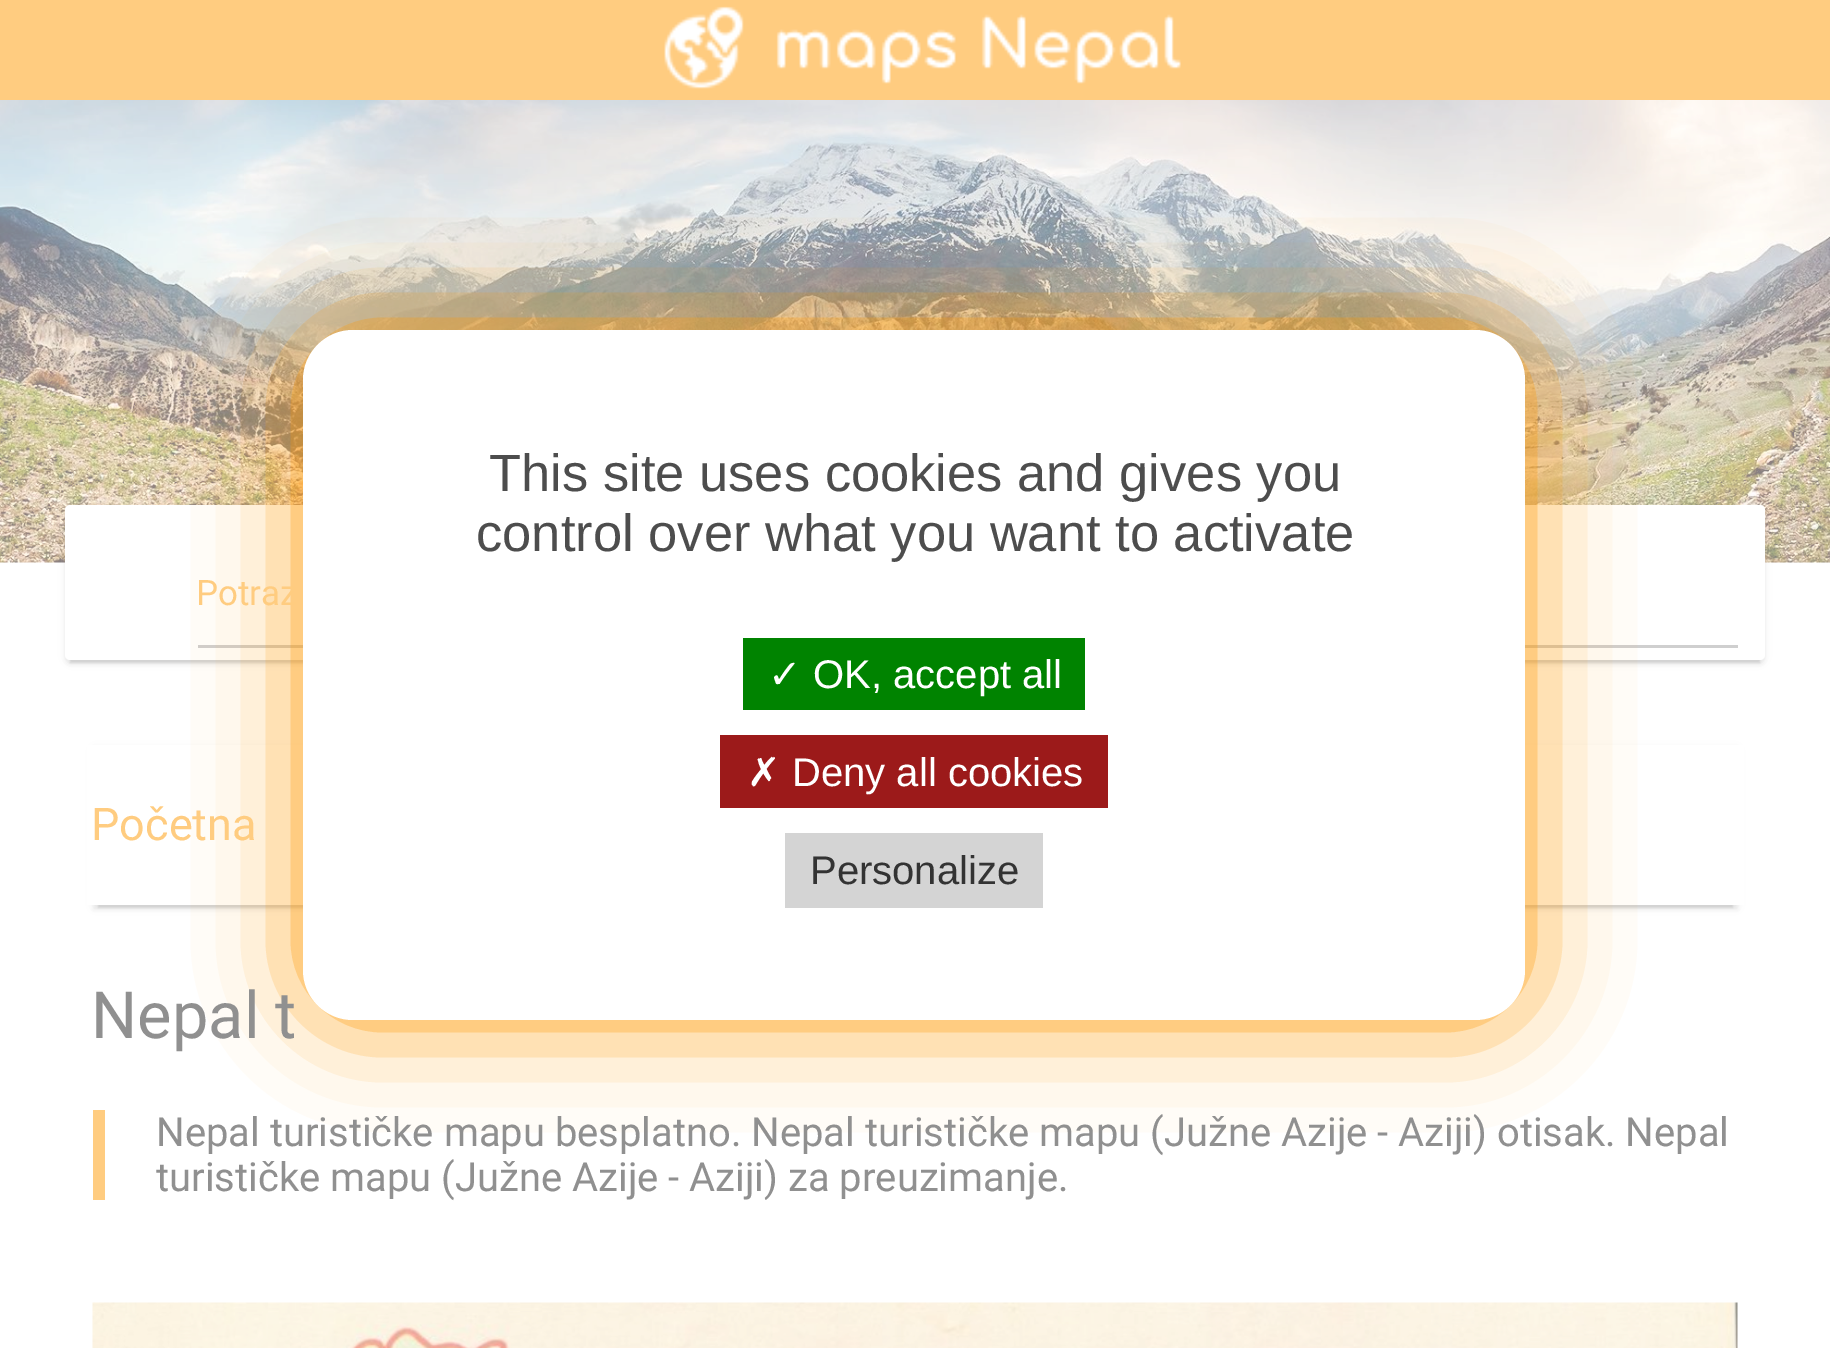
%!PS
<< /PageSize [1830 1348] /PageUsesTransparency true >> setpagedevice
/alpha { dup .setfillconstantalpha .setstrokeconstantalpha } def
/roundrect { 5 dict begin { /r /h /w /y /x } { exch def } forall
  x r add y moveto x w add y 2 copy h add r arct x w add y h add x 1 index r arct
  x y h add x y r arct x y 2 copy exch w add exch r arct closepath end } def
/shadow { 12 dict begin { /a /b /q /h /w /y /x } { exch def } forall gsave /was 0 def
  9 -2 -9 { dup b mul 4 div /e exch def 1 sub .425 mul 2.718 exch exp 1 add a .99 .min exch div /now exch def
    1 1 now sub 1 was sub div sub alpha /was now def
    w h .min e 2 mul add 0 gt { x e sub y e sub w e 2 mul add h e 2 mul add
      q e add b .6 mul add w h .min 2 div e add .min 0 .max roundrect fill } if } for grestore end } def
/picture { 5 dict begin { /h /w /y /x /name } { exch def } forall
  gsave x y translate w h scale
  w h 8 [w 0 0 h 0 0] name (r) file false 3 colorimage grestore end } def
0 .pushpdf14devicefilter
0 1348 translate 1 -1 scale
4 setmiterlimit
1 setgray
0 0 1830 1348 rectfill
1 0.8 0.502 setrgbcolor
0 0 1830 100 rectfill
(img1.rgb) 664 6 517 83 picture
(img2.rgb) 0 100 1830 463 picture
0.502 setgray
70 518 1690 145 0 1 0.2 shadow
65 508 1700 155 5 6 0.12 shadow
65 510 1700 155 5 2.5 0.14 shadow
1 setgray
65 505 1700 155 5 roundrect fill
0.812 setgray
198 645 1540 3 rectfill
0.502 setgray
98 758 1635 150 0 1 0.2 shadow
93 748 1645 160 0 6 0.12 shadow
93 750 1645 160 0 2.5 0.14 shadow
1 setgray
87 745 1657 160 rectfill
1 0.596 0 setrgbcolor
303 330 1222 690 50 50 1 shadow
/Roboto-Regular [35 0 0 -35 0 0] selectfont
1 0.8 0.502 setrgbcolor
196 605 moveto (Potrazi) show
1 setgray
303 330 1222 690 50 roundrect fill
/LiberationSans-Regular [52.5 0 0 -52.5 0 0] selectfont
0.302 setgray
489 491 moveto (This site uses cookies and gives you) show
476 551 moveto (control over what you want to activate) show
0 0.514 0 setrgbcolor
743 638 342 72 rectfill
/DejaVuSans-Regular [40 0 0 -40 0 0] selectfont
1 setgray
768 688 moveto (✓) show
/LiberationSans-Regular [40 0 0 -40 0 0] selectfont
813 688 moveto (OK, accept all) show
0.612 0.102 0.102 setrgbcolor
720 735 388 73 rectfill
/DejaVuSans-Regular [40 0 0 -40 0 0] selectfont
1 setgray
747 786 moveto (✗) show
/LiberationSans-Regular [40 0 0 -40 0 0] selectfont
792 786 moveto (Deny all cookies) show
0.831 setgray
785 833 258 75 rectfill
0.2 setgray
810 884 moveto (Personalize) show
/Roboto-Regular [45 0 0 -45 0 0] selectfont
1 0.8 0.502 setrgbcolor
91 840 moveto (Početna) show
/Roboto-Regular [65 0 0 -65 0 0] selectfont
0.565 setgray
91 1038 moveto (Nepal t) show
1 0.8 0.502 setrgbcolor
93 1110 12 90 rectfill
/Roboto-Regular [40 0 0 -40 0 0] selectfont
0.565 setgray
156 1146 moveto (Nepal turističke mapu besplatno. Nepal turističke mapu \(Južne Azije - Aziji\) otisak. Nepal) show
156 1191 moveto (turističke mapu \(Južne Azije - Aziji\) za preuzimanje.) show
(img3.rgb) 92 1302 1646 46 picture
.poppdf14devicefilter showpage
